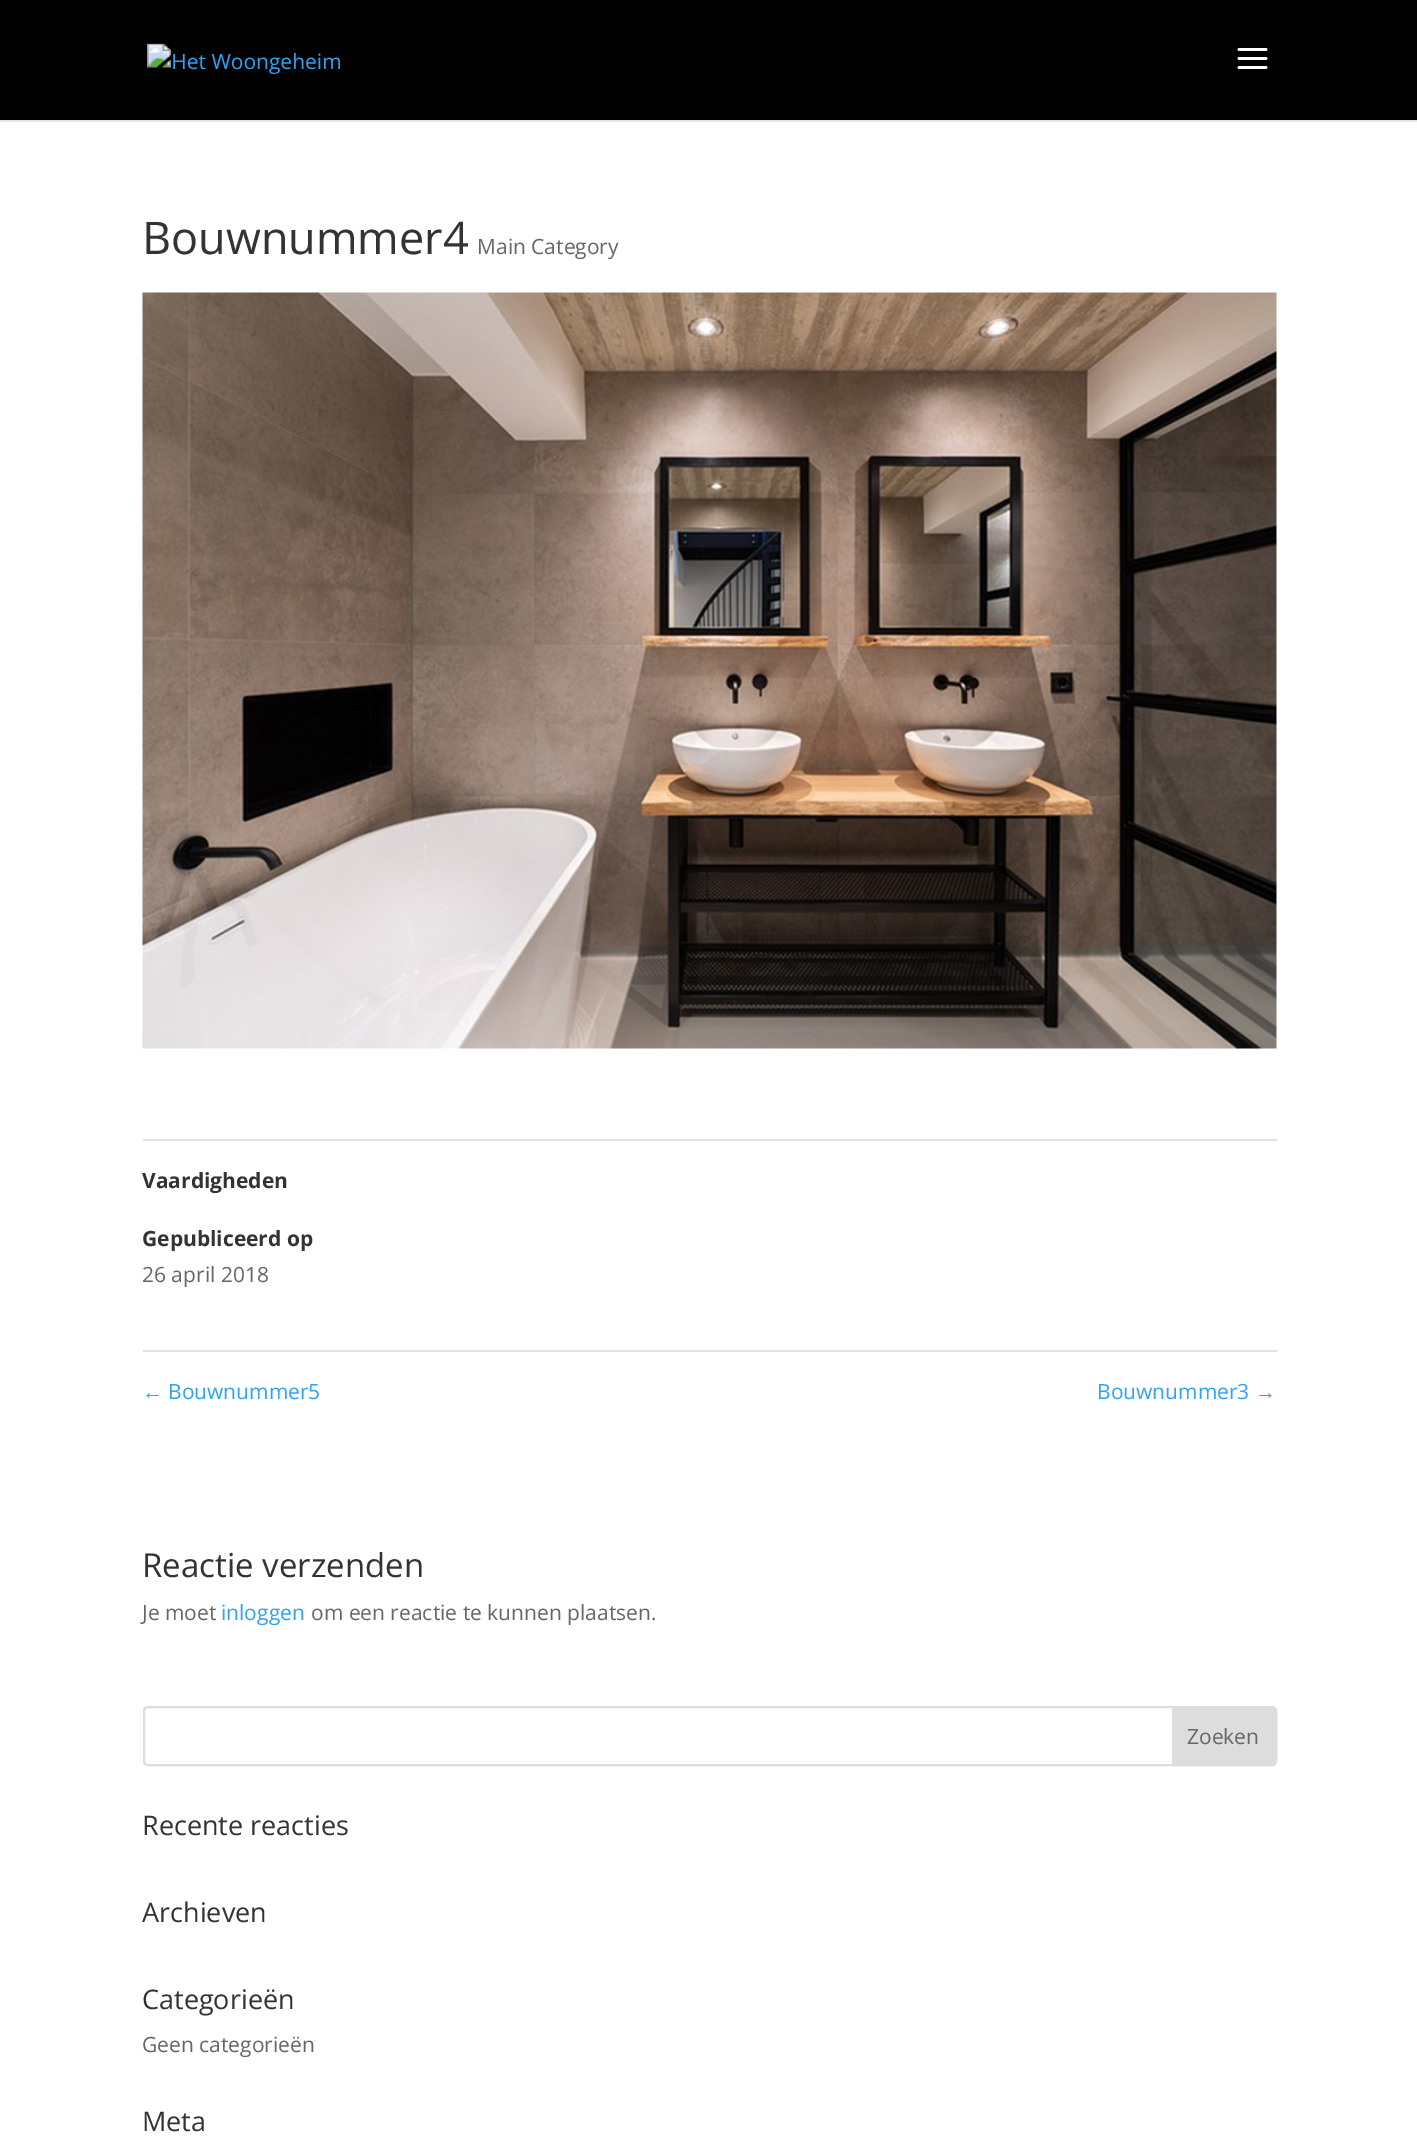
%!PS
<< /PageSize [1417 2138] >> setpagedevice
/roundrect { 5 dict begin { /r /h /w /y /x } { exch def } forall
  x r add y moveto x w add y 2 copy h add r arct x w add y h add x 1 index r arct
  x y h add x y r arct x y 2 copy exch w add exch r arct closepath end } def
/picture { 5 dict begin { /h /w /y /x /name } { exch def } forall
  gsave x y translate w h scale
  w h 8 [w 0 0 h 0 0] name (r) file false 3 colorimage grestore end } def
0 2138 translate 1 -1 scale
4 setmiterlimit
1 setgray
0 0 1417 2138 rectfill
0.902 setgray
newpath 0 120 moveto 0 122 lineto 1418 122 lineto 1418 2 lineto 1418 120 lineto closepath fill
0 setgray
0 0 1417 120 rectfill
(img1.rgb) 147 43 193 31 picture
(img2.rgb) 1237 48 31 21 picture
/OpenSans-Regular [45 0 0 -45 0 0] selectfont
0.2 setgray
142 254 moveto (Bouwnummer4) show
/OpenSans-Regular [21 0 0 -21 0 0] selectfont
0.4 setgray
477 254 moveto (Main Category) show
(img3.rgb) 142 292 1135 757 picture
0.886 setgray
143 1139 1134 2 rectfill
143 1350 1134 2 rectfill
/OpenSans-Bold [21 0 0 -21 0 0] selectfont
0.2 setgray
142 1188 moveto (Vaardigheden) show
142 1246 moveto (Gepubliceerd op) show
/OpenSans-Regular [21 0 0 -21 0 0] selectfont
0.4 setgray
142 1282 moveto (26 april 2018) show
/LiberationSans-Regular [21 0 0 -21 0 0] selectfont
0.18 0.639 0.949 setrgbcolor
142 1399 moveto (←) show
/OpenSans-Regular [21 0 0 -21 0 0] selectfont
168 1399 moveto (Bouwnummer5) show
1097 1399 moveto (Bouwnummer3) show
/LiberationSans-Regular [21 0 0 -21 0 0] selectfont
1255 1399 moveto (→) show
/OpenSans-Regular [33 0 0 -33 0 0] selectfont
0.2 setgray
142 1577 moveto (Reactie verzenden) show
/OpenSans-Regular [21 0 0 -21 0 0] selectfont
0.4 setgray
142 1620 moveto (Je moet) show
0.18 0.639 0.949 setrgbcolor
221 1620 moveto (inloggen) show
0.4 setgray
311 1620 moveto (om een reactie te kunnen plaatsen.) show
0.867 setgray
2 setlinewidth
144 1707 1132 58 4 roundrect stroke
newpath 1173 1707 moveto 1272 1707 lineto 1274 1707 1276 1709 1276 1711 curveto 1276 1761 lineto 1276 1763 1274 1765 1272 1765 curveto 1173 1765 lineto closepath gsave fill grestore
stroke
0.4 setgray
1187 1744 moveto (Zoeken) show
/OpenSans-Regular [27 0 0 -27 0 0] selectfont
0.2 setgray
142 1835 moveto (Recente reacties) show
142 1922 moveto (Archieven) show
142 2009 moveto (Categorieën) show
/OpenSans-Regular [21 0 0 -21 0 0] selectfont
0.4 setgray
142 2052 moveto (Geen categorieën) show
/OpenSans-Regular [27 0 0 -27 0 0] selectfont
0.2 setgray
142 2131 moveto (Meta) show
showpage
